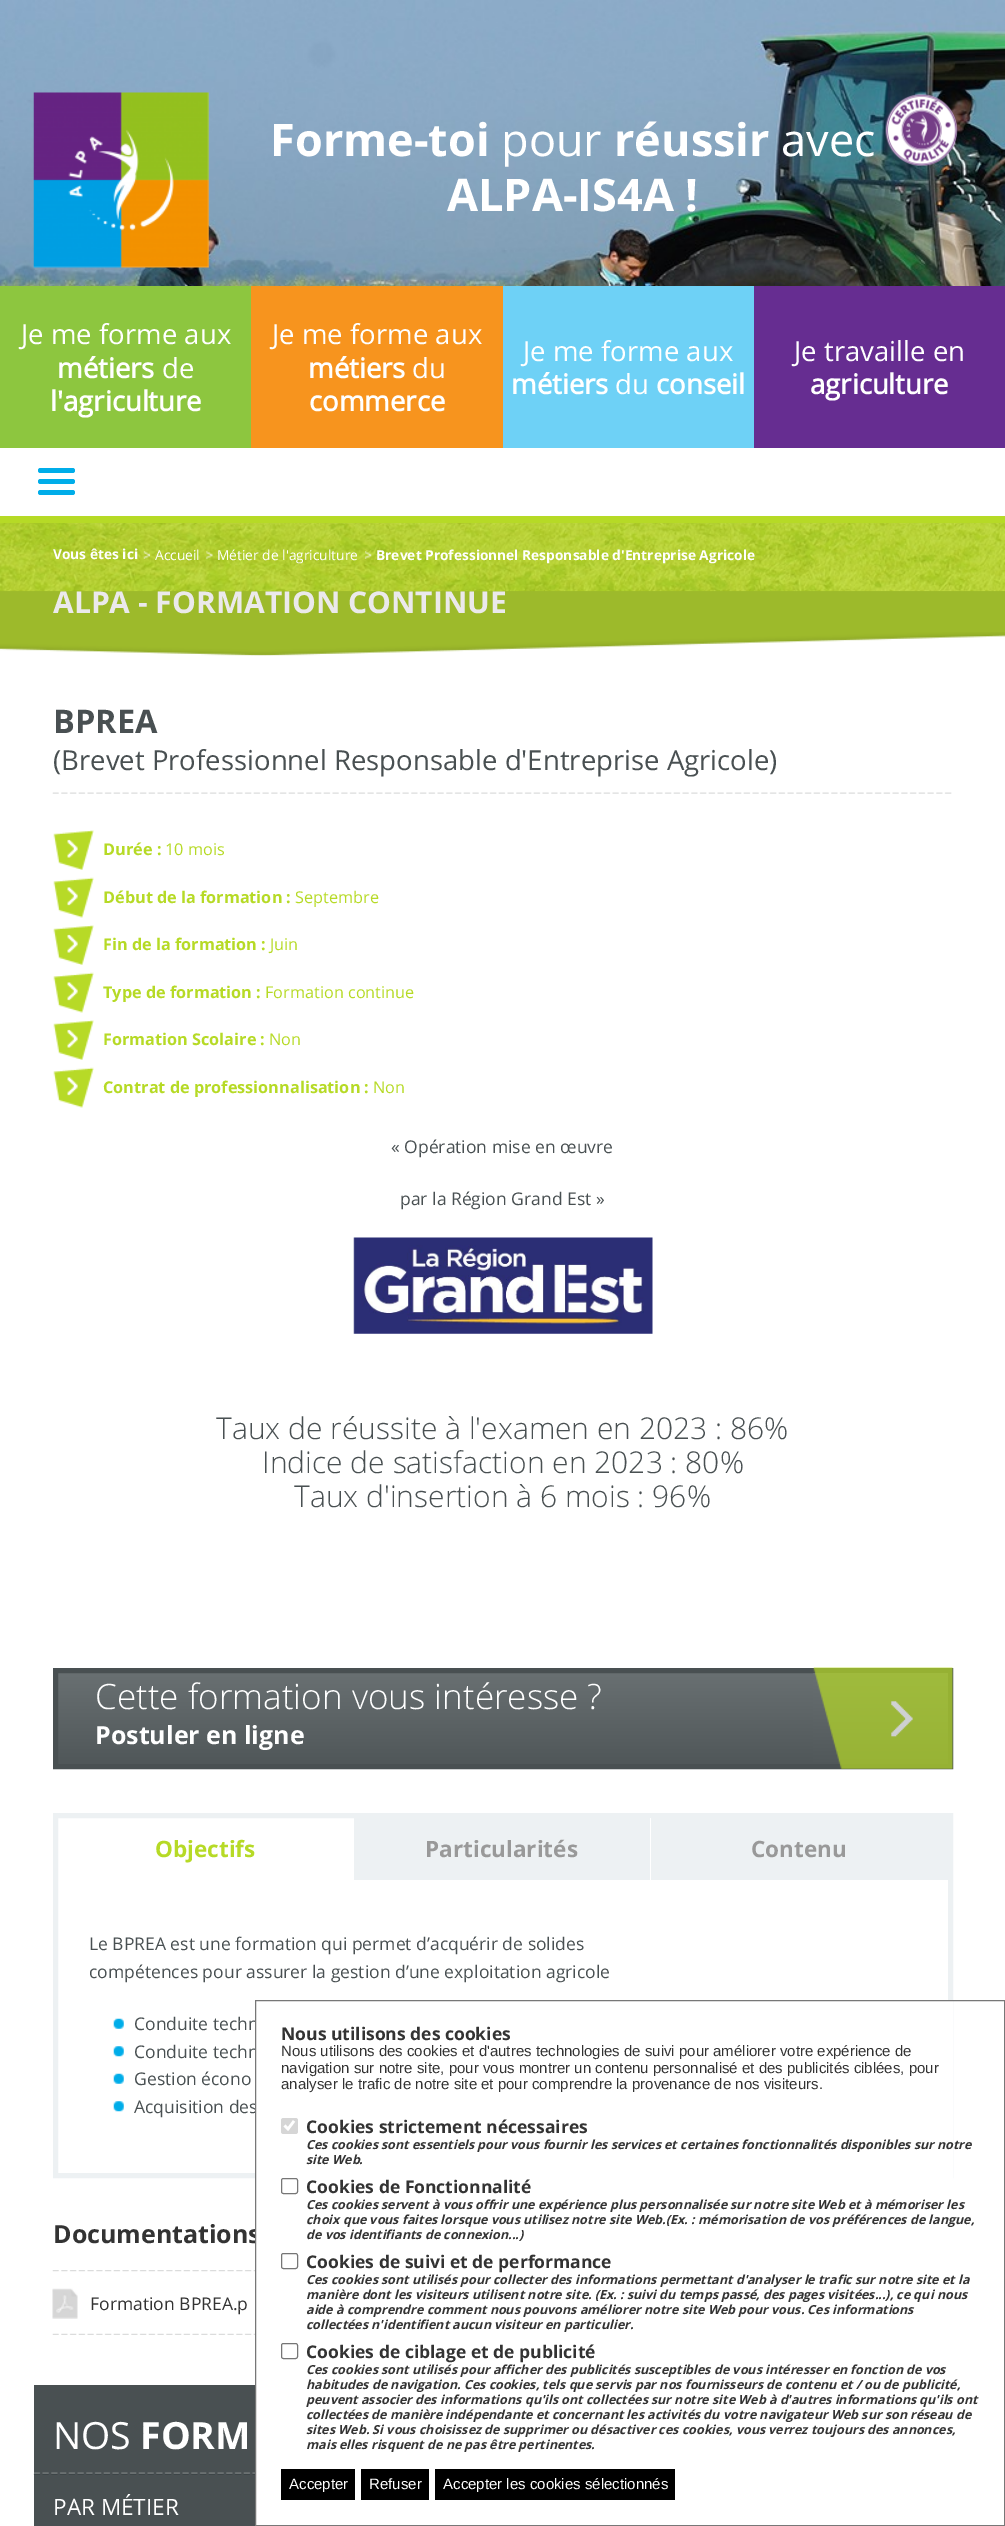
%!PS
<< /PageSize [1005 2526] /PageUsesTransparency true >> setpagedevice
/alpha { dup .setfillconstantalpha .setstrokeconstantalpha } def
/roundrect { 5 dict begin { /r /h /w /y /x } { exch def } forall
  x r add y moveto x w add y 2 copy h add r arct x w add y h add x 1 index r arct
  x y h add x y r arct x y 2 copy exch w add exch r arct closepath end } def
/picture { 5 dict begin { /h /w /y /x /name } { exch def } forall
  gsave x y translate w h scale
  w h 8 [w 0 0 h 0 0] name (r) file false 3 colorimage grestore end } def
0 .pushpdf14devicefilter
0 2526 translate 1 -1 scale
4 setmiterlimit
0.227 0.247 0.259 setrgbcolor
0 0 1005 2526 rectfill
(img1.rgb) 0 0 1005 592 picture
(img2.rgb) 33 92 176 176 picture
/OpenSans-Bold [45 0 0 -45 0 0] selectfont
1 setgray
270 156 moveto (Forme-toi) show
/OpenSans-Regular [45 0 0 -45 0 0] selectfont
501 156 moveto (pour) show
/OpenSans-Bold [45 0 0 -45 0 0] selectfont
614 156 moveto (réussir) show
/OpenSans-Regular [45 0 0 -45 0 0] selectfont
781 156 moveto (avec) show
/OpenSans-Bold [45 0 0 -45 0 0] selectfont
447 211 moveto (ALPA-IS4A !) show
(img3.rgb) 885 94 73 73 picture
0.553 0.776 0.247 setrgbcolor
0 286 251 162 rectfill
/OpenSans-Regular [27.5 0 0 -27.5 0 0] selectfont
1 setgray
21 344 moveto (Je me forme aux) show
/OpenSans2-Bold [27.5 0 0 -27.5 0 0] selectfont
57 378 moveto (métiers) show
/OpenSans-Regular [27.5 0 0 -27.5 0 0] selectfont
162 378 moveto (de) show
/OpenSans2-Bold [27.5 0 0 -27.5 0 0] selectfont
50 411 moveto (l'agriculture) show
0.969 0.58 0.118 setrgbcolor
251 286 252 162 rectfill
/OpenSans-Regular [27.5 0 0 -27.5 0 0] selectfont
1 setgray
272 344 moveto (Je me forme aux) show
/OpenSans2-Bold [27.5 0 0 -27.5 0 0] selectfont
308 378 moveto (métiers) show
/OpenSans-Regular [27.5 0 0 -27.5 0 0] selectfont
412 378 moveto (du) show
/OpenSans2-Bold [27.5 0 0 -27.5 0 0] selectfont
309 411 moveto (commerce) show
0.431 0.82 0.965 setrgbcolor
503 286 251 162 rectfill
/OpenSans-Regular [27.5 0 0 -27.5 0 0] selectfont
1 setgray
523 361 moveto (Je me forme aux) show
/OpenSans2-Bold [27.5 0 0 -27.5 0 0] selectfont
511 394 moveto (métiers) show
/OpenSans-Regular [27.5 0 0 -27.5 0 0] selectfont
615 394 moveto (du) show
/OpenSans2-Bold [27.5 0 0 -27.5 0 0] selectfont
656 394 moveto (conseil) show
0.4 0.176 0.569 setrgbcolor
754 286 251 162 rectfill
/OpenSans-Regular [27.5 0 0 -27.5 0 0] selectfont
1 setgray
794 361 moveto (Je travaille en) show
/OpenSans2-Bold [27.5 0 0 -27.5 0 0] selectfont
810 394 moveto (agriculture) show
0 448 1005 68 rectfill
0.714 0.855 0.149 setrgbcolor
0 516 1005 7 rectfill
0 0.678 0.914 setrgbcolor
38 468 37 5 2.5 roundrect fill
38 479 37 5 2.5 roundrect fill
38 490 37 5 2.5 roundrect fill
0.8 alpha
0.714 0.851 0.145 setrgbcolor
0 523 1005 133 rectfill
1 alpha
(img4.rgb) 143 551 7 8 picture
/OpenSans-Bold [13.75 0 0 -13.75 0 0] selectfont
1 setgray
53 559 moveto (Vous êtes ici) show
(img5.rgb) 206 551 7 8 picture
/OpenSans-Regular [13.75 0 0 -13.75 0 0] selectfont
155 560 moveto (Accueil) show
(img6.rgb) 365 551 7 8 picture
217 560 moveto (Métier de l'agriculture) show
/OpenSans-Bold [13.75 0 0 -13.75 0 0] selectfont
376 560 moveto (Brevet Professionnel Responsable d'Entreprise Agricole) show
/OpenSans-Bold [30 0 0 -30 0 0] selectfont
0.922 0.914 0.922 setrgbcolor
53 613 moveto (ALPA - FORMATION CONTINUE) show
1 setgray
0 656 1005 1870 rectfill
(img7.rgb) 0 632 1005 24 picture
(img8.rgb) 52 792 900 2 picture
/OpenSans-Bold [32.5 0 0 -32.5 0 0] selectfont
0.286 0.314 0.322 setrgbcolor
53 733 moveto (BPREA) show
/OpenSans-Regular [27.5 0 0 -27.5 0 0] selectfont
53 770 moveto (\(Brevet Professionnel Responsable d'Entreprise Agricole\)) show
(img9.rgb) 53 830 41 40 picture
/OpenSans-Bold [16.25 0 0 -16.25 0 0] selectfont
0.714 0.855 0.149 setrgbcolor
103 855 moveto (Durée :) show
/OpenSans-Regular [16.25 0 0 -16.25 0 0] selectfont
165 855 moveto (10 mois) show
(img10.rgb) 53 877 41 41 picture
/OpenSans-Bold [16.25 0 0 -16.25 0 0] selectfont
103 903 moveto (Début de la formation :) show
/OpenSans-Regular [16.25 0 0 -16.25 0 0] selectfont
295 903 moveto (Septembre) show
(img9.rgb) 53 925 41 40 picture
/OpenSans-Bold [16.25 0 0 -16.25 0 0] selectfont
103 950 moveto (Fin de la formation :) show
/OpenSans-Regular [16.25 0 0 -16.25 0 0] selectfont
270 950 moveto (Juin) show
(img10.rgb) 53 972 41 41 picture
/OpenSans-Bold [16.25 0 0 -16.25 0 0] selectfont
103 998 moveto (Type de formation :) show
/OpenSans-Regular [16.25 0 0 -16.25 0 0] selectfont
265 998 moveto (Formation continue) show
(img9.rgb) 53 1020 41 40 picture
/OpenSans-Bold [16.25 0 0 -16.25 0 0] selectfont
103 1045 moveto (Formation Scolaire :) show
/OpenSans-Regular [16.25 0 0 -16.25 0 0] selectfont
269 1045 moveto (Non) show
(img10.rgb) 53 1067 41 41 picture
/OpenSans-Bold [16.25 0 0 -16.25 0 0] selectfont
103 1093 moveto (Contrat de professionnalisation :) show
/OpenSans-Regular [16.25 0 0 -16.25 0 0] selectfont
373 1093 moveto (Non) show
/OpenSans-Regular [17.5 0 0 -17.5 0 0] selectfont
0.286 0.314 0.322 setrgbcolor
391 1153 moveto (« Opération mise en œuvre) show
400 1205 moveto (par la Région Grand Est ») show
(img11.rgb) 353 1237 300 97 picture
/OpenSans-Light [30 0 0 -30 0 0] selectfont
216 1439 moveto (Taux de réussite à l'examen en 2023 : 86%) show
262 1473 moveto (Indice de satisfaction en 2023 : 80%) show
294 1507 moveto (Taux d'insertion à 6 mois : 96%) show
gsave newpath 58 1673 moveto 948 1673 lineto 948 1764 lineto 58 1764 lineto closepath clip newpath
<< /ShadingType 2 /ColorSpace /DeviceRGB /Coords [58 1673 58 1764] /Extend [true true] /Function << /FunctionType 2 /Domain [0 1] /C0 [0.412 0.439 0.447] /C1 [0.314 0.341 0.349] /N 1 >> >> shfill grestore
5 setlinewidth
55.5 1670.5 895 96 rectstroke
/OpenSans-Light [35 0 0 -35 0 0] selectfont
1 setgray
95 1709 moveto (Cette formation vous intéresse ?) show
/OpenSans-Bold [25 0 0 -25 0 0] selectfont
95 1744 moveto (Postuler en ligne) show
(img12.rgb) 813 1667 140 102 picture
0.929 0.945 0.953 setrgbcolor
55.5 1815.5 895 360 rectstroke
354 1818 594 62 rectfill
/OpenSans-Bold [22.5 0 0 -22.5 0 0] selectfont
0.714 0.855 0.149 setrgbcolor
155 1857 moveto (Objectifs) show
1 setgray
650 1818 1 62 rectfill
0.6 setgray
425 1857 moveto (Particularités) show
751 1857 moveto (Contenu) show
/OpenSans-Regular [17.5 0 0 -17.5 0 0] selectfont
0.286 0.314 0.322 setrgbcolor
89 1950 moveto (Le BPREA est une formation qui permet d’acquérir de solides) show
89 1978 moveto (compétences pour assurer la gestion d’une exploitation agricole) show
(img13.rgb) 113 2018 11 11 picture
134 2030 moveto (Conduite techn) show
(img14.rgb) 113 2046 11 11 picture
134 2058 moveto (Conduite techn) show
(img13.rgb) 113 2073 11 11 picture
134 2085 moveto (Gestion écono) show
(img15.rgb) 113 2101 11 11 picture
134 2113 moveto (Acquisition des) show
(img16.rgb) 52 2270 203 2 picture
/OpenSans-Bold [25 0 0 -25 0 0] selectfont
0.2 setgray
53 2243 moveto (Documentations) show
(img17.rgb) 52 2333 203 2 picture
(img18.rgb) 52 2288 26 31 picture
/OpenSans-Regular [17.5 0 0 -17.5 0 0] selectfont
90 2310 moveto (Formation BPREA.p) show
0.286 0.314 0.322 setrgbcolor
34 2385 221 141 rectfill
(img19.rgb) 33 2472 222 3 picture
/OpenSans-Regular [37.5 0 0 -37.5 0 0] selectfont
1 setgray
53 2449 moveto (NOS) show
/OpenSans-Bold [37.5 0 0 -37.5 0 0] selectfont
140 2449 moveto (FORM) show
/OpenSans-Regular [22.5 0 0 -22.5 0 0] selectfont
53 2515 moveto (PAR MÉTIER) show
256 2001 697 242 rectfill
0.467 setgray
1 setlinewidth
255.5 2000.5 749 525 rectstroke
/OpenSans-Bold [17.5 0 0 -17.5 0 0] selectfont
0.2 setgray
281 2040 moveto (Nous utilisons des cookies) show
/LiberationSans-Regular [15 0 0 -15 0 0] selectfont
281 2056 moveto (Nous utilisons des cookies et d'autres technologies de suivi pour améliorer votre expérience de) show
281 2073 moveto (navigation sur notre site, pour vous montrer un contenu personnalisé et des publicités ciblées, pour) show
281 2089 moveto (analyser le trafic de notre site et pour comprendre la provenance de nos visiteurs.) show
0.839 setgray
281 2118 17 16 2.5 roundrect fill
1 setgray
2.6 setlinewidth
newpath 284.5 2125.5 moveto 288 2129 lineto 294 2121 lineto stroke
/OpenSans-Bold [17.5 0 0 -17.5 0 0] selectfont
0.2 setgray
306 2133 moveto (Cookies strictement nécessaires) show
/OpenSans-BoldItalic [12.5 0 0 -12.5 0 0] selectfont
306 2149 moveto (Ces cookies sont essentiels pour vous fournir les services et certaines fonctionnalités disponibles sur notre) show
306 2164 moveto (site Web.) show
0.463 setgray
1 setlinewidth
281.5 2178.5 16 15 2 roundrect stroke
/OpenSans-Bold [17.5 0 0 -17.5 0 0] selectfont
0.2 setgray
306 2193 moveto (Cookies de Fonctionnalité) show
/OpenSans-BoldItalic [12.5 0 0 -12.5 0 0] selectfont
306 2209 moveto (Ces cookies servent à vous offrir une expérience plus personnalisée sur notre site Web et à mémoriser les) show
306 2224 moveto (choix que vous faites lorsque vous utilisez notre site Web.\(Ex. : mémorisation de vos préférences de langue,) show
306 2239 moveto (de vos identifiants de connexion...\)) show
0.463 setgray
281.5 2253.5 16 15 2 roundrect stroke
/OpenSans-Bold [17.5 0 0 -17.5 0 0] selectfont
0.2 setgray
306 2268 moveto (Cookies de suivi et de performance) show
/OpenSans-BoldItalic [12.5 0 0 -12.5 0 0] selectfont
306 2284 moveto (Ces cookies sont utilisés pour collecter des informations permettant d'analyser le trafic sur notre site et la) show
306 2299 moveto (manière dont les visiteurs utilisent notre site. \(Ex. : suivi du temps passé, des pages visitées...\), ce qui nous) show
306 2314 moveto (aide à comprendre comment nous pouvons améliorer notre site Web pour vous. Ces informations) show
306 2329 moveto (collectées n'identifient aucun visiteur en particulier.) show
0.463 setgray
281.5 2343.5 16 15 2 roundrect stroke
/OpenSans-Bold [17.5 0 0 -17.5 0 0] selectfont
0.2 setgray
306 2358 moveto (Cookies de ciblage et de publicité) show
/OpenSans-BoldItalic [12.5 0 0 -12.5 0 0] selectfont
306 2374 moveto (Ces cookies sont utilisés pour afficher des publicités susceptibles de vous intéresser en fonction de vos) show
306 2389 moveto (habitudes de navigation. Ces cookies, tels que servis par nos fournisseurs de contenu et / ou de publicité,) show
306 2404 moveto (peuvent associer des informations qu'ils ont collectées sur notre site Web à d'autres informations qu'ils ont) show
306 2419 moveto (collectées de manière indépendante et concernant les activités du votre navigateur Web sur son réseau de) show
306 2434 moveto (sites Web. Si vous choisissez de supprimer ou désactiver ces cookies, vous verrez toujours des annonces,) show
306 2449 moveto (mais elles risquent de ne pas être pertinentes.) show
0 setgray
281 2469 74 31 rectfill
/LiberationSans-Regular [15 0 0 -15 0 0] selectfont
1 setgray
289 2489 moveto (Accepter) show
0 setgray
361 2469 68 31 rectfill
1 setgray
369 2489 moveto (Refuser) show
0 setgray
435 2469 240 31 rectfill
1 setgray
443 2489 moveto (Accepter les cookies sélectionnés) show
.poppdf14devicefilter showpage
